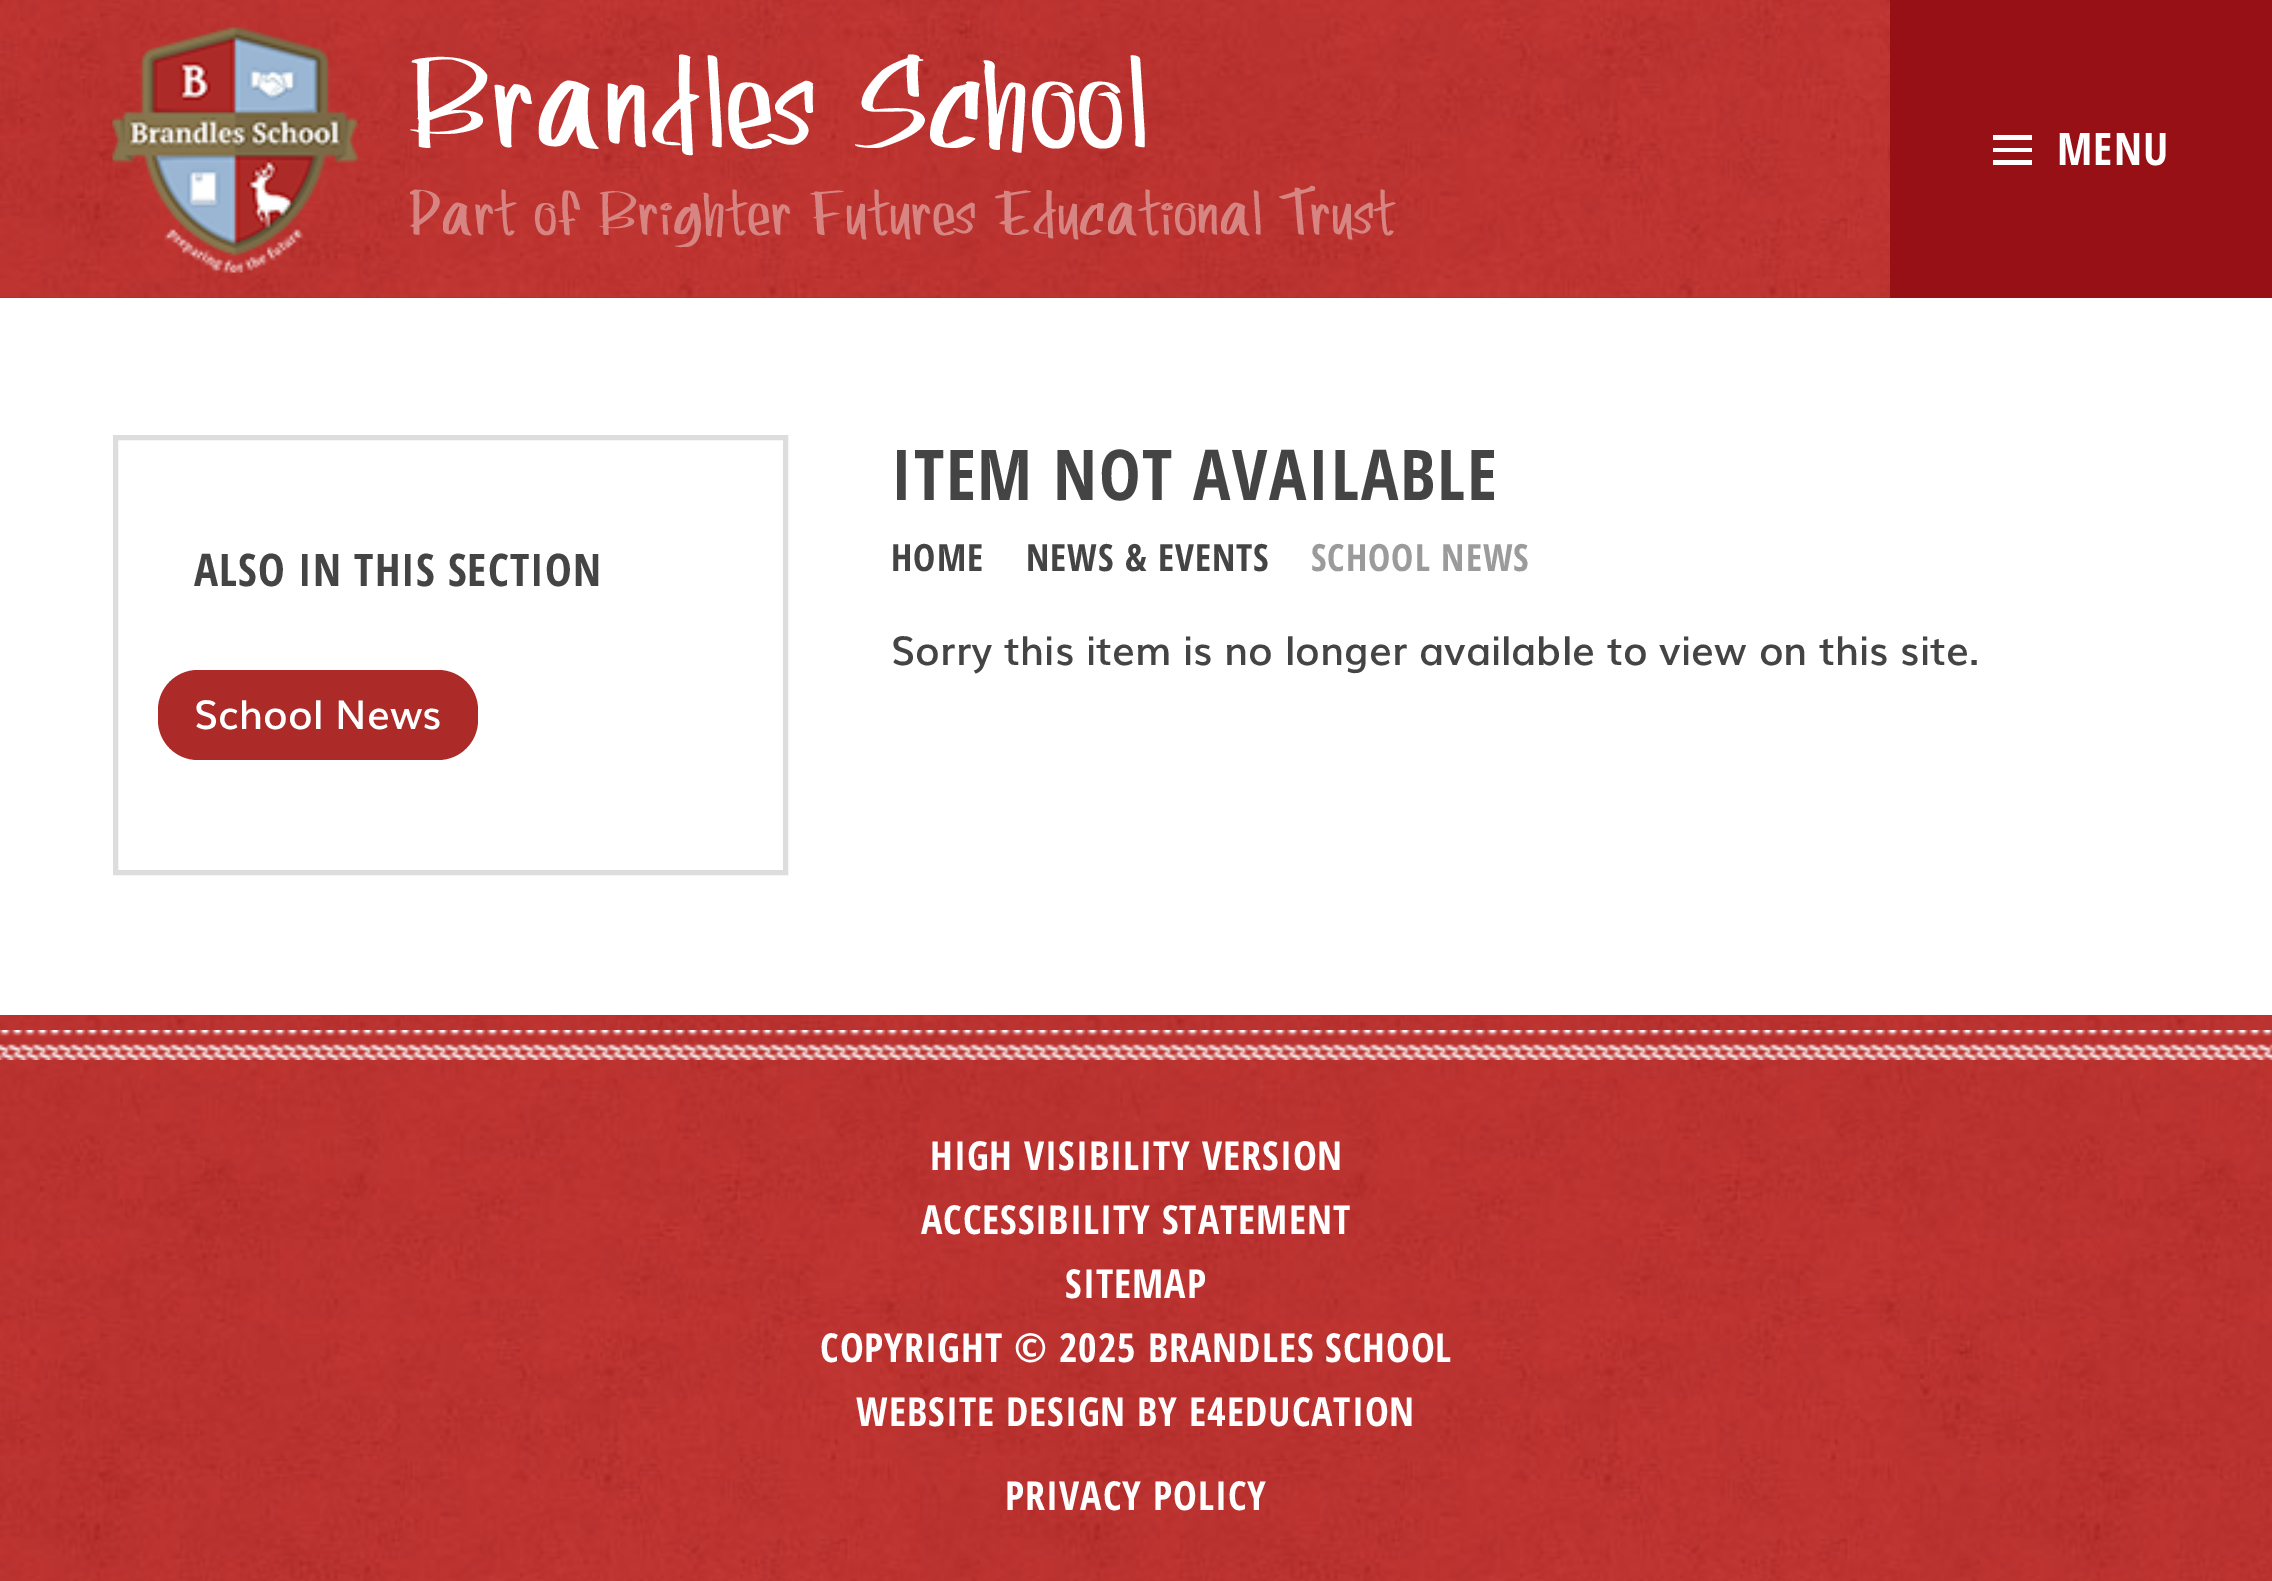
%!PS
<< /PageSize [2272 1581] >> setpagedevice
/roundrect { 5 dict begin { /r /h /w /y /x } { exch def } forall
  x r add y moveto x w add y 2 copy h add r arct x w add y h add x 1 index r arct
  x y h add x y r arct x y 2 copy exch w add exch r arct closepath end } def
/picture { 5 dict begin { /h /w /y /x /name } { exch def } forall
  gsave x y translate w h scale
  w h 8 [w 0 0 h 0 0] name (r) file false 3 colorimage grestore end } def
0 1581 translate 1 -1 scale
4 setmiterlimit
1 setgray
0 0 2272 1581 rectfill
0.675 0.169 0.157 setrgbcolor
0 297 1890 1 rectfill
(img1.rgb) 0 0 1890 298 picture
(img2.rgb) 112 27 247 246 picture
/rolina-Regular [135 0 0 -135 0 0] selectfont
1 setgray
410 148 moveto 3.4 0 (Brandles School) ashow
/rolina-Regular [65 0 0 -65 0 0] selectfont
0.843 0.522 0.514 setrgbcolor
410 235 moveto 1.6 0 (Part of Brighter Futures Educational Trust) ashow
0.588 0.063 0.082 setrgbcolor
1890 0 382 298 rectfill
gsave
1993 135 40 30 rectclip
1 setgray
newpath 1992 135 moveto 2032 135 lineto 2032 140 lineto 1992 140 lineto closepath 1992 160 moveto 2032 160 lineto 2032 165 lineto 1992 165 lineto closepath 1992 148 moveto 2032 148 lineto 2032 152 lineto 1992 152 lineto closepath eofill
grestore
/OpenSansCondensed-Bold [45 0 0 -45 0 0] selectfont
1 setgray
2057 165 moveto 1.1 0 (MENU) ashow
0.867 setgray
5 setlinewidth
115.5 437.5 670 435 rectstroke
0.267 setgray
194 586 moveto 1.1 0 (ALSO IN THIS SECTION) ashow
0.675 0.169 0.157 setrgbcolor
158 670 320 90 40 roundrect fill
/Muli-SemiBold [40 0 0 -40 0 0] selectfont
1 setgray
194 729 moveto (School News) show
/OpenSansCondensed-Bold [70 0 0 -70 0 0] selectfont
0.267 setgray
891 500 moveto 1.75 0 (ITEM NOT AVAILABLE) ashow
/OpenSansCondensed-Bold [37.5 0 0 -37.5 0 0] selectfont
891 571 moveto 1 0 (HOME) ashow
1026 571 moveto 1 0 (NEWS & EVENTS) ashow
0.608 setgray
1311 571 moveto 1 0 (SCHOOL NEWS) ashow
/Muli-SemiBold [40 0 0 -40 0 0] selectfont
0.267 setgray
891 665 moveto (Sorry this item is no longer available to view on this site.) show
(img3.rgb) 0 1015 2272 566 picture
(img4.rgb) 0 1030 2272 30 picture
/OpenSansCondensed-Bold [40 0 0 -40 0 0] selectfont
1 setgray
930 1170 moveto 1 0 (HIGH VISIBILITY VERSION) ashow
921 1234 moveto 1 0 (ACCESSIBILITY STATEMENT) ashow
1065 1298 moveto 1 0 (SITEMAP) ashow
820 1362 moveto 1 0 (COPYRIGHT © 2025 BRANDLES SCHOOL) ashow
856 1426 moveto 1 0 (WEBSITE DESIGN BY E4EDUCATION) ashow
1005 1510 moveto 1 0 (PRIVACY POLICY) ashow
showpage
